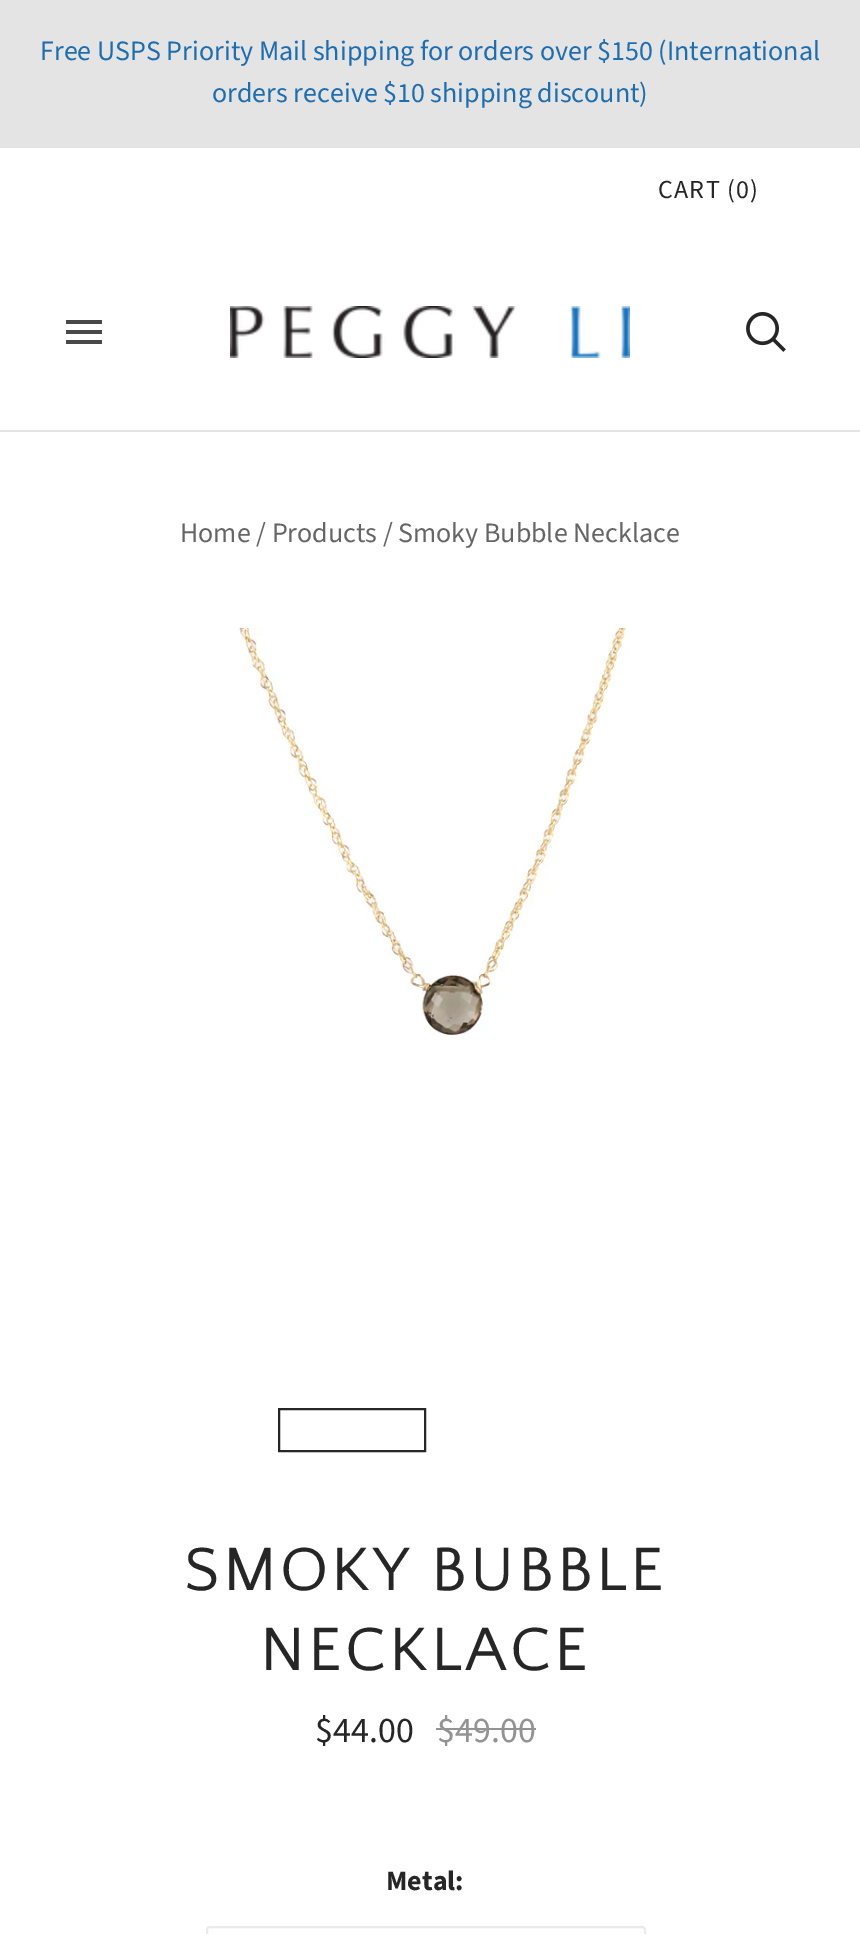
%!PS
<< /PageSize [860 1934] >> setpagedevice
/roundrect { 5 dict begin { /r /h /w /y /x } { exch def } forall
  x r add y moveto x w add y 2 copy h add r arct x w add y h add x 1 index r arct
  x y h add x y r arct x y 2 copy exch w add exch r arct closepath end } def
/picture { 5 dict begin { /h /w /y /x /name } { exch def } forall
  gsave x y translate w h scale
  w h 8 [w 0 0 h 0 0] name (r) file false 3 colorimage grestore end } def
0 1934 translate 1 -1 scale
4 setmiterlimit
1 setgray
0 0 860 1934 rectfill
0.894 setgray
0 0 860 148 rectfill
/SourceSansPro-Regular [28 0 0 -28 0 0] selectfont
0.114 0.427 0.686 setrgbcolor
40 60 moveto (Free USPS Priority Mail shipping for orders over $150 \(International) show
212 102 moveto (orders receive $10 shipping discount\)) show
0.894 setgray
0 430 860 2 rectfill
/SourceSansPro-Regular [26 0 0 -26 0 0] selectfont
0.149 setgray
658 198 moveto 1.25 0 (CART \(0\)) ashow
0.286 setgray
newpath 66 320 moveto 102 320 lineto 102 324 lineto 66 324 lineto closepath 66 330 moveto 102 330 lineto 102 334 lineto 66 334 lineto closepath 66 340 moveto 102 340 lineto 102 344 lineto 66 344 lineto closepath eofill
(img1.rgb) 230 306 400 52 picture
(img2.rgb) 746 312 40 40 picture
/SourceSansPro-Regular [28 0 0 -28 0 0] selectfont
0.396 setgray
180 542 moveto (Home / Products / Smoky Bubble Necklace) show
(img3.rgb) 238 628 392 407 picture
0.149 setgray
2 setlinewidth
279 1409 146 42 rectstroke
/QuattrocentoSans-Regular [64 0 0 -64 0 0] selectfont
184 1590 moveto 3.25 0 (SMOKY BUBBLE) ashow
260 1670 moveto 3.25 0 (NECKLACE) ashow
/SourceSansPro-Regular [36 0 0 -36 0 0] selectfont
315 1742 moveto ($44.00) show
0.576 setgray
437 1742 moveto ($49.00) show
436 1728 100 2 rectfill
/SourceSansPro-Bold [28 0 0 -28 0 0] selectfont
0.149 setgray
386 1890 moveto (Metal:) show
0.922 setgray
207 1927 438 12 3 roundrect stroke
showpage
